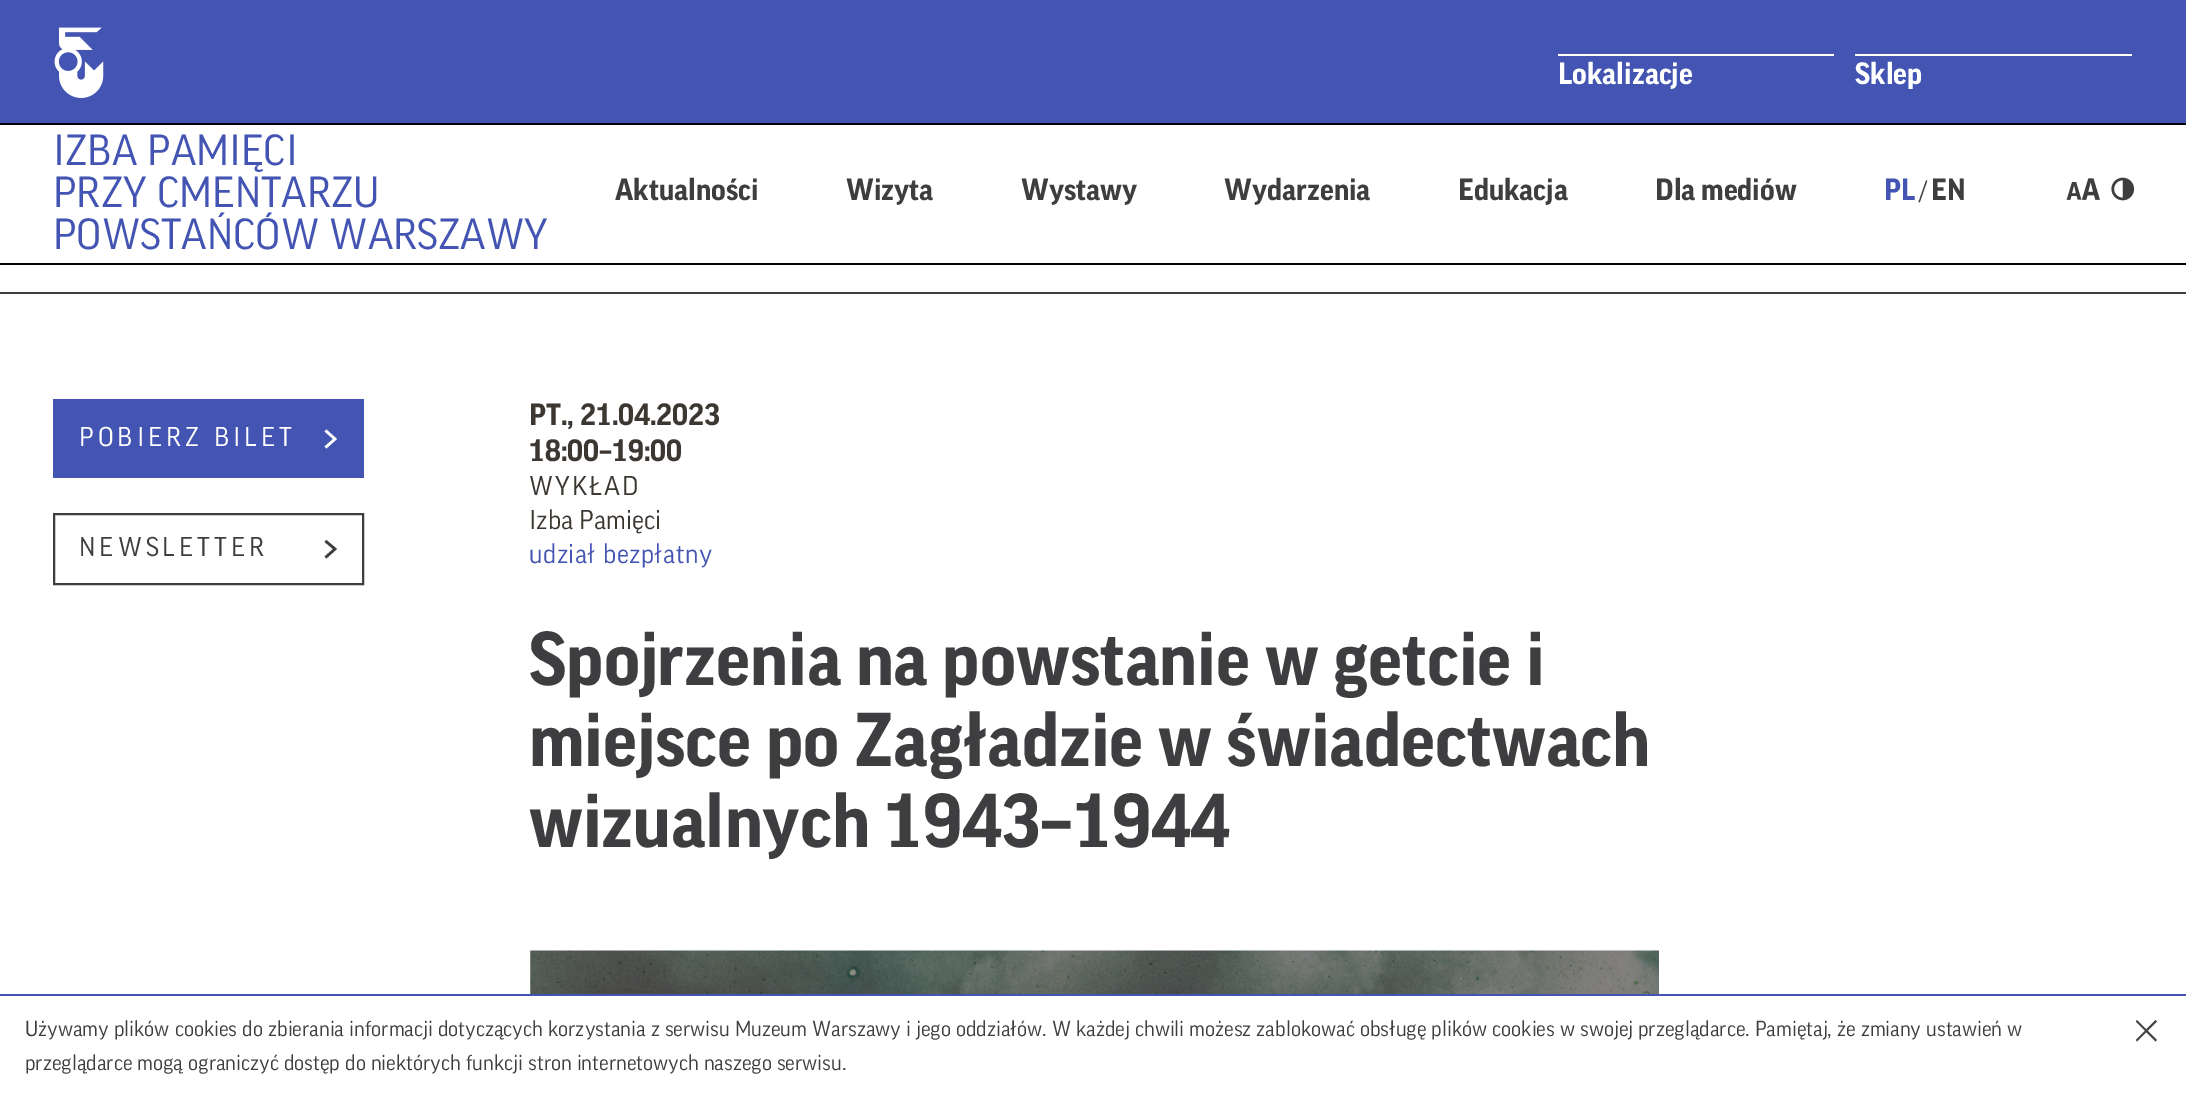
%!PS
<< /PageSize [2186 1099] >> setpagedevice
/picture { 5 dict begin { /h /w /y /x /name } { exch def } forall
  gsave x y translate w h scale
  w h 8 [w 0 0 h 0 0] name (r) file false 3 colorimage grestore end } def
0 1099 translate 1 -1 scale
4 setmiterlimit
1 setgray
0 0 2186 1099 rectfill
0.263 0.329 0.702 setrgbcolor
0 0 2186 123 rectfill
0 setgray
0 123 2186 2 rectfill
(img1.rgb) 54 27 50 71 picture
1 setgray
1558 54 276 2 rectfill
/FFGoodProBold-Regular [29.75 0 0 -29.75 0 0] selectfont
1558 84 moveto (Lokalizacje) show
1855 54 277 2 rectfill
1855 84 moveto (Sklep) show
0 setgray
0 263 2186 2 rectfill
/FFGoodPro-Regular [42 0 0 -42 0 0] selectfont
0.263 0.329 0.702 setrgbcolor
53 165 moveto (IZBA PAMIĘCI) show
53 207 moveto (PRZY CMENTARZU) show
53 249 moveto (POWSTAŃCÓW WARSZAWY) show
/FFGoodProBold-Regular [29.75 0 0 -29.75 0 0] selectfont
0.243 0.239 0.251 setrgbcolor
615 200 moveto (Aktualności) show
846 200 moveto (Wizyta) show
1021 200 moveto (Wystawy) show
1224 200 moveto (Wydarzenia) show
1458 200 moveto (Edukacja) show
1655 200 moveto (Dla mediów) show
0.263 0.329 0.702 setrgbcolor
1884 200 moveto (PL) show
/FFGoodPro-Regular [26.25 0 0 -26.25 0 0] selectfont
0.243 0.239 0.251 setrgbcolor
1919 200 moveto (/) show
/FFGoodProBold-Regular [29.75 0 0 -29.75 0 0] selectfont
1931 200 moveto (EN) show
(img2.rgb) 2066 178 34 22 picture
(img3.rgb) 2111 177 24 24 picture
0 292 2186 2 rectfill
0.263 0.329 0.702 setrgbcolor
53 399 311 79 rectfill
/FFGoodPro-Regular [26.25 0 0 -26.25 0 0] selectfont
1 setgray
79 446 moveto 4 0 (POBIERZ BILET) ashow
2.6 setlinewidth
newpath 325.5 430.5 moveto 335 439 lineto 325.5 447.5 lineto stroke
0.243 0.239 0.251 setrgbcolor
2 setlinewidth
54 514 309 70 rectstroke
79 556 moveto 4 0 (NEWSLETTER) ashow
2.6 setlinewidth
newpath 325.5 541 moveto 335 549 lineto 325.5 557.5 lineto stroke
/FFGoodProBold-Regular [29.75 0 0 -29.75 0 0] selectfont
0.239 0.216 0.196 setrgbcolor
529 425 moveto (PT., 21.04.2023) show
529 461 moveto (18:00–19:00) show
/FFGoodPro-Regular [26.25 0 0 -26.25 0 0] selectfont
529 495 moveto 2 0 (WYKŁAD) ashow
529 529 moveto (Izba Pamięci) show
0.263 0.329 0.702 setrgbcolor
529 563 moveto 0.5 0 (udział bezpłatny) ashow
/FFGoodProBold-Regular [73.5 0 0 -73.5 0 0] selectfont
0.243 0.239 0.251 setrgbcolor
529 685 moveto (Spojrzenia na powstanie w getcie i) show
529 766 moveto (miejsce po Zagładzie w świadectwach) show
529 847 moveto (wizualnych 1943–1944) show
(img4.rgb) 530 950 1129 44 picture
0.263 0.329 0.702 setrgbcolor
0 994 2186 2 rectfill
/FFGoodPro-Regular [21 0 0 -21 0 0] selectfont
0.243 0.239 0.251 setrgbcolor
25 1036 moveto (Używamy plików cookies do zbierania informacji dotyczących korzystania z serwisu Muzeum Warszawy i jego oddziałów. W każdej chwili możesz zablokować obsługę plików cookies w swojej przeglądarce. Pamiętaj, że zmiany ustawień w) show
0.267 setgray
newpath 2155.5 1020 moveto 2157 1021.5 lineto 2137 1041.5 lineto 2136 1040 lineto closepath fill
newpath 2136 1021.5 moveto 2137 1020 lineto 2157 1040 lineto 2155.5 1041.5 lineto closepath fill
0.243 0.239 0.251 setrgbcolor
25 1070 moveto (przeglądarce mogą ograniczyć dostęp do niektórych funkcji stron internetowych naszego serwisu.) show
showpage
